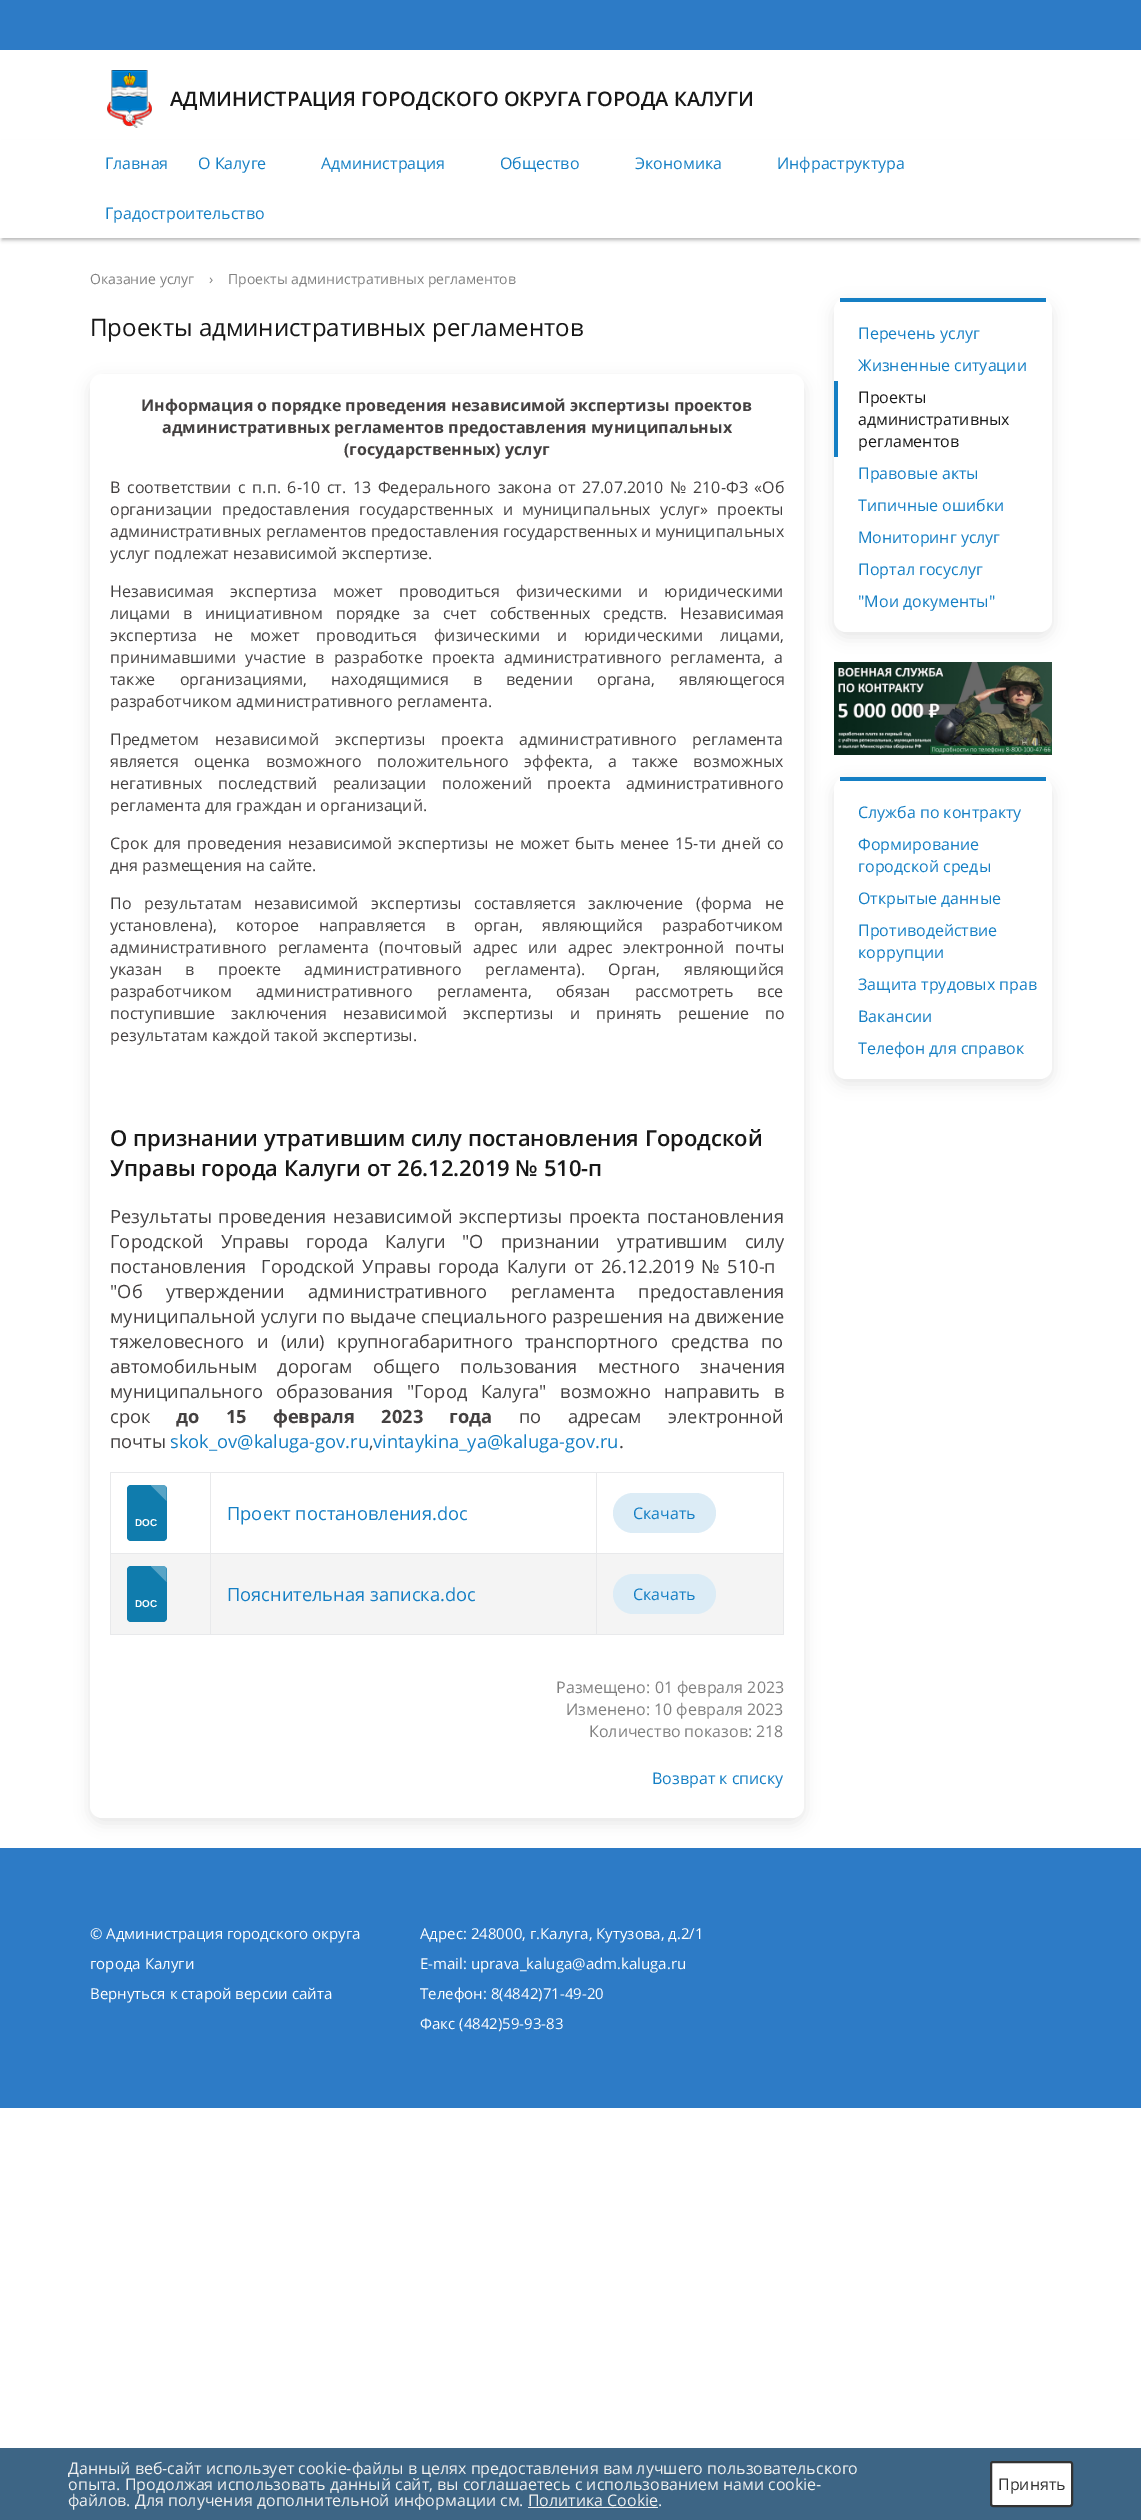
%!PS
<< /PageSize [1141 2520] /PageUsesTransparency true >> setpagedevice
/alpha { dup .setfillconstantalpha .setstrokeconstantalpha } def
/roundrect { 5 dict begin { /r /h /w /y /x } { exch def } forall
  x r add y moveto x w add y 2 copy h add r arct x w add y h add x 1 index r arct
  x y h add x y r arct x y 2 copy exch w add exch r arct closepath end } def
/shadow { 12 dict begin { /a /b /q /h /w /y /x } { exch def } forall gsave /was 0 def
  9 -2 -9 { dup b mul 4 div /e exch def 1 sub .425 mul 2.718 exch exp 1 add a .99 .min exch div /now exch def
    1 1 now sub 1 was sub div sub alpha /was now def
    w h .min e 2 mul add 0 gt { x e sub y e sub w e 2 mul add h e 2 mul add
      q e add b .6 mul add w h .min 2 div e add .min 0 .max roundrect fill } if } for grestore end } def
/picture { 5 dict begin { /h /w /y /x /name } { exch def } forall
  gsave x y translate w h scale
  w h 8 [w 0 0 h 0 0] name (r) file false 3 colorimage grestore end } def
0 .pushpdf14devicefilter
0 2520 translate 1 -1 scale
4 setmiterlimit
1 setgray
0 0 1141 2520 rectfill
0.176 0.482 0.776 setrgbcolor
0 0 1141 50 rectfill
(img1.rgb) 107 70 45 58 picture
/OpenSans-SemiBold [20 0 0 -20 0 0] selectfont
0.094 setgray
170 106 moveto (АДМИНИСТРАЦИЯ ГОРОДСКОГО ОКРУГА ГОРОДА КАЛУГИ) show
0 setgray
2 144 1137 96 0 2 0.3 shadow
1 setgray
0 140 1141 98 rectfill
/OpenSans-Regular [16 0 0 -16 0 0] selectfont
0.082 0.498 0.769 setrgbcolor
105 169 moveto (Главная) show
198 169 moveto (О Калуге) show
321 169 moveto (Администрация) show
500 169 moveto (Общество) show
635 169 moveto (Экономика) show
777 169 moveto (Инфраструктура) show
105 219 moveto (Градостроительство) show
/OpenSans-Regular [14 0 0 -14 0 0] selectfont
0.502 setgray
90 284 moveto (Оказание услуг) show
209 284 moveto (›) show
228 284 moveto (Проекты административных регламентов) show
/OpenSans-Regular [24 0 0 -24 0 0] selectfont
0.094 setgray
90 336 moveto (Проекты административных регламентов) show
0 setgray
90 379 714 1444 12 7.5 0.1 shadow
1 setgray
90 374 714 1444 12 roundrect fill
/OpenSans-Bold [16 0 0 -16 0 0] selectfont
0.267 0.255 0.255 setrgbcolor
141 411 moveto (Информация о порядке проведения независимой экспертизы проектов) show
162 433 moveto (административных регламентов предоставления муниципальных) show
344 455 moveto (\(государственных\) услуг) show
/OpenSans-Regular [16 0 0 -16 0 0] selectfont
110 493 moveto 2.5 0 32 (В соответствии с п.п. 6-10 ст. 13 Федерального закона от 27.07.2010 № 210-ФЗ «Об) widthshow
110 515 moveto 5.25 0 32 (организации предоставления государственных и муниципальных услуг» проекты) widthshow
110 537 moveto (административных регламентов предоставления государственных и муниципальных) show
110 559 moveto (услуг подлежат независимой экспертизе.) show
110 597 moveto 12 0 32 (Независимая экспертиза может проводиться физическими и юридическими) widthshow
110 619 moveto 8.75 0 32 (лицами в инициативном порядке за счет собственных средств. Независимая) widthshow
110 641 moveto 12.75 0 32 (экспертиза не может проводиться физическими и юридическими лицами,) widthshow
110 663 moveto 5 0 32 (принимавшими участие в разработке проекта административного регламента, а) widthshow
110 685 moveto 20 0 32 (также организациями, находящимися в ведении органа, являющегося) widthshow
110 707 moveto (разработчиком административного регламента.) show
110 745 moveto 11.5 0 32 (Предметом независимой экспертизы проекта административного регламента) widthshow
110 767 moveto 11.25 0 32 (является оценка возможного положительного эффекта, а также возможных) widthshow
110 789 moveto 11.5 0 32 (негативных последствий реализации положений проекта административного) widthshow
110 811 moveto (регламента для граждан и организаций.) show
110 849 moveto 1.9 0 32 (Срок для проведения независимой экспертизы не может быть менее 15-ти дней со) widthshow
110 871 moveto (дня размещения на сайте.) show
110 909 moveto 8.5 0 32 (По результатам независимой экспертизы составляется заключение \(форма не) widthshow
110 931 moveto 15 0 32 (установлена\), которое направляется в орган, являющийся разработчиком) widthshow
110 953 moveto 6.5 0 32 (административного регламента \(почтовый адрес или адрес электронной почты) widthshow
110 975 moveto 19.25 0 32 (указан в проекте административного регламента\). Орган, являющийся) widthshow
110 997 moveto 20 0 32 (разработчиком административного регламента, обязан рассмотреть все) widthshow
110 1019 moveto 12 0 32 (поступившие заключения независимой экспертизы и принять решение по) widthshow
110 1041 moveto (результатам каждой такой экспертизы.) show
/OpenSans-SemiBold [22 0 0 -22 0 0] selectfont
0.094 setgray
110 1146 moveto (О признании утратившим силу постановления Городской) show
110 1176 moveto (Управы города Калуги от 26.12.2019 № 510-п) show
/OpenSans-Regular [18.25 0 0 -18.25 0 0] selectfont
0.267 0.255 0.255 setrgbcolor
110 1223 moveto 2 0 32 (Результаты проведения независимой экспертизы проекта постановления) widthshow
110 1248 moveto 12.25 0 32 (Городской Управы города Калуги "О признании утратившим силу) widthshow
110 1273 moveto 2.5 0 32 (постановления  Городской Управы города Калуги от 26.12.2019 № 510-п) widthshow
110 1298 moveto 19 0 32 ("Об утверждении административного регламента предоставления) widthshow
110 1323 moveto 0.25 0 32 (муниципальной услуги по выдаче специального разрешения на движение) widthshow
110 1348 moveto 7.5 0 32 (тяжеловесного и \(или\) крупногабаритного транспортного средства по) widthshow
110 1373 moveto 15.5 0 32 (автомобильным дорогам общего пользования местного значения) widthshow
110 1398 moveto 8.75 0 32 (муниципального образования "Город Калуга" возможно направить в) widthshow
110 1423 moveto (срок) show
/OpenSans-Bold [18.25 0 0 -18.25 0 0] selectfont
176 1423 moveto 21.5 0 32 (до 15 февраля 2023 года) widthshow
/OpenSans-Regular [18.25 0 0 -18.25 0 0] selectfont
519 1423 moveto 21.5 0 32 (по адресам электронной) widthshow
110 1448 moveto (почты) show
0.082 0.498 0.769 setrgbcolor
170 1448 moveto (skok_ov@kaluga-gov.ru) show
0.267 0.255 0.255 setrgbcolor
369 1448 moveto (,) show
0.082 0.498 0.769 setrgbcolor
373 1448 moveto (vintaykina_ya@kaluga-gov.ru) show
0.267 0.255 0.255 setrgbcolor
619 1448 moveto (.) show
0.91 0.914 0.922 setrgbcolor
596 1472 188 1 rectfill
596 1553 188 1 rectfill
0.957 setgray
111 1554 672 80 rectfill
0.91 0.914 0.922 setrgbcolor
783 1553 1 82 rectfill
596 1634 188 1 rectfill
596 1553 1 82 rectfill
210 1553 387 1 rectfill
596 1472 1 82 rectfill
210 1472 387 1 rectfill
210 1634 387 1 rectfill
210 1553 1 82 rectfill
110 1553 101 1 rectfill
210 1472 1 82 rectfill
0.082 0.498 0.769 setrgbcolor
227 1520 moveto (Проект постановления.doc) show
0.91 0.914 0.922 setrgbcolor
783 1472 1 82 rectfill
0.863 0.925 0.965 setrgbcolor
613 1493 103 40 20 roundrect fill
/OpenSans-Regular [16 0 0 -16 0 0] selectfont
0.082 0.498 0.769 setrgbcolor
633 1519 moveto (Скачать) show
0.91 0.914 0.922 setrgbcolor
110 1472 101 1 rectfill
110 1634 101 1 rectfill
110 1553 1 82 rectfill
110 1472 1 82 rectfill
0.063 0.486 0.678 setrgbcolor
127 1485 40 56 4 roundrect fill
0.3 alpha
1 setgray
newpath 151 1485.5 moveto 151 1485 lineto 166.5 1485 lineto 166.5 1501 lineto closepath fill
/LiberationSans-Bold [10 0 0 -10 0 0] selectfont
1 alpha
135 1526 moveto (DOC) show
/OpenSans-Regular [18.25 0 0 -18.25 0 0] selectfont
0.082 0.498 0.769 setrgbcolor
227 1601 moveto (Пояснительная записка.doc) show
0.863 0.925 0.965 setrgbcolor
613 1574 103 40 20 roundrect fill
/OpenSans-Regular [16 0 0 -16 0 0] selectfont
0.082 0.498 0.769 setrgbcolor
633 1600 moveto (Скачать) show
0.063 0.486 0.678 setrgbcolor
127 1566 40 56 4 roundrect fill
0.3 alpha
1 setgray
newpath 151 1566.5 moveto 151 1566 lineto 166.5 1566 lineto 166.5 1582 lineto closepath fill
/LiberationSans-Bold [10 0 0 -10 0 0] selectfont
1 alpha
135 1607 moveto (DOC) show
/OpenSans-Regular [16 0 0 -16 0 0] selectfont
0.502 setgray
556 1693 moveto (Размещено: 01 февраля 2023) show
566 1715 moveto (Изменено: 10 февраля 2023) show
589 1737 moveto (Количество показов: 218) show
0.082 0.498 0.769 setrgbcolor
652 1784 moveto (Возврат к списку) show
0 setgray
834 303 218 334 12 7.5 0.1 shadow
1 setgray
834 298 218 334 12 roundrect fill
0.082 0.498 0.769 setrgbcolor
840 298 206 4 rectfill
858 339 moveto (Перечень услуг) show
858 371 moveto (Жизненные ситуации) show
834 381 4 76 rectfill
0.094 setgray
858 403 moveto (Проекты) show
858 425 moveto (административных) show
858 447 moveto (регламентов) show
0.082 0.498 0.769 setrgbcolor
858 479 moveto (Правовые акты) show
858 511 moveto (Типичные ошибки) show
858 543 moveto (Мониторинг услуг) show
858 575 moveto (Портал госуслуг) show
858 607 moveto ("Мои документы") show
(img2.rgb) 834 662 218 93 picture
0 setgray
834 782 218 302 12 7.5 0.1 shadow
1 setgray
834 777 218 302 12 roundrect fill
0.082 0.498 0.769 setrgbcolor
840 777 206 4 rectfill
858 818 moveto (Служба по контракту) show
858 850 moveto (Формирование) show
858 872 moveto (городской среды) show
858 904 moveto (Открытые данные) show
858 936 moveto (Противодействие) show
858 958 moveto (коррупции) show
858 990 moveto (Защита трудовых прав) show
858 1022 moveto (Вакансии) show
858 1054 moveto (Телефон для справок) show
0.176 0.482 0.776 setrgbcolor
0 1848 1141 260 rectfill
/OpenSans-Regular [15 0 0 -15 0 0] selectfont
1 setgray
90 1939 moveto (© Администрация городского округа) show
90 1969 moveto (города Калуги) show
90 1999 moveto (Вернуться к старой версии сайта) show
420 1939 moveto (Адрес: 248000, г.Калуга, Кутузова, д.2/1) show
420 1969 moveto (E-mail: uprava_kaluga@adm.kaluga.ru) show
420 1999 moveto (Телефон: 8\(4842\)71-49-20) show
420 2029 moveto (Факс \(4842\)59-93-83) show
0.239 0.396 0.522 setrgbcolor
0 2448 1141 72 rectfill
/OpenSans-Regular [16 0 0 -16 0 0] selectfont
0.945 setgray
68 2474 moveto (Данный веб-сайт использует cookie-файлы в целях предоставления вам лучшего пользовательского) show
68 2490 moveto (опыта. Продолжая использовать данный сайт, вы соглашаетесь с использованием нами cookie-) show
68 2506 moveto (файлов. Для получения дополнительной информации см. Политика Cookie.) show
528 2507 130 1 rectfill
1 setgray
991 2462 81 44 2 roundrect gsave fill grestore
0.2 setgray
2 setlinewidth
stroke
998 2490 moveto (Принять) show
.poppdf14devicefilter showpage
